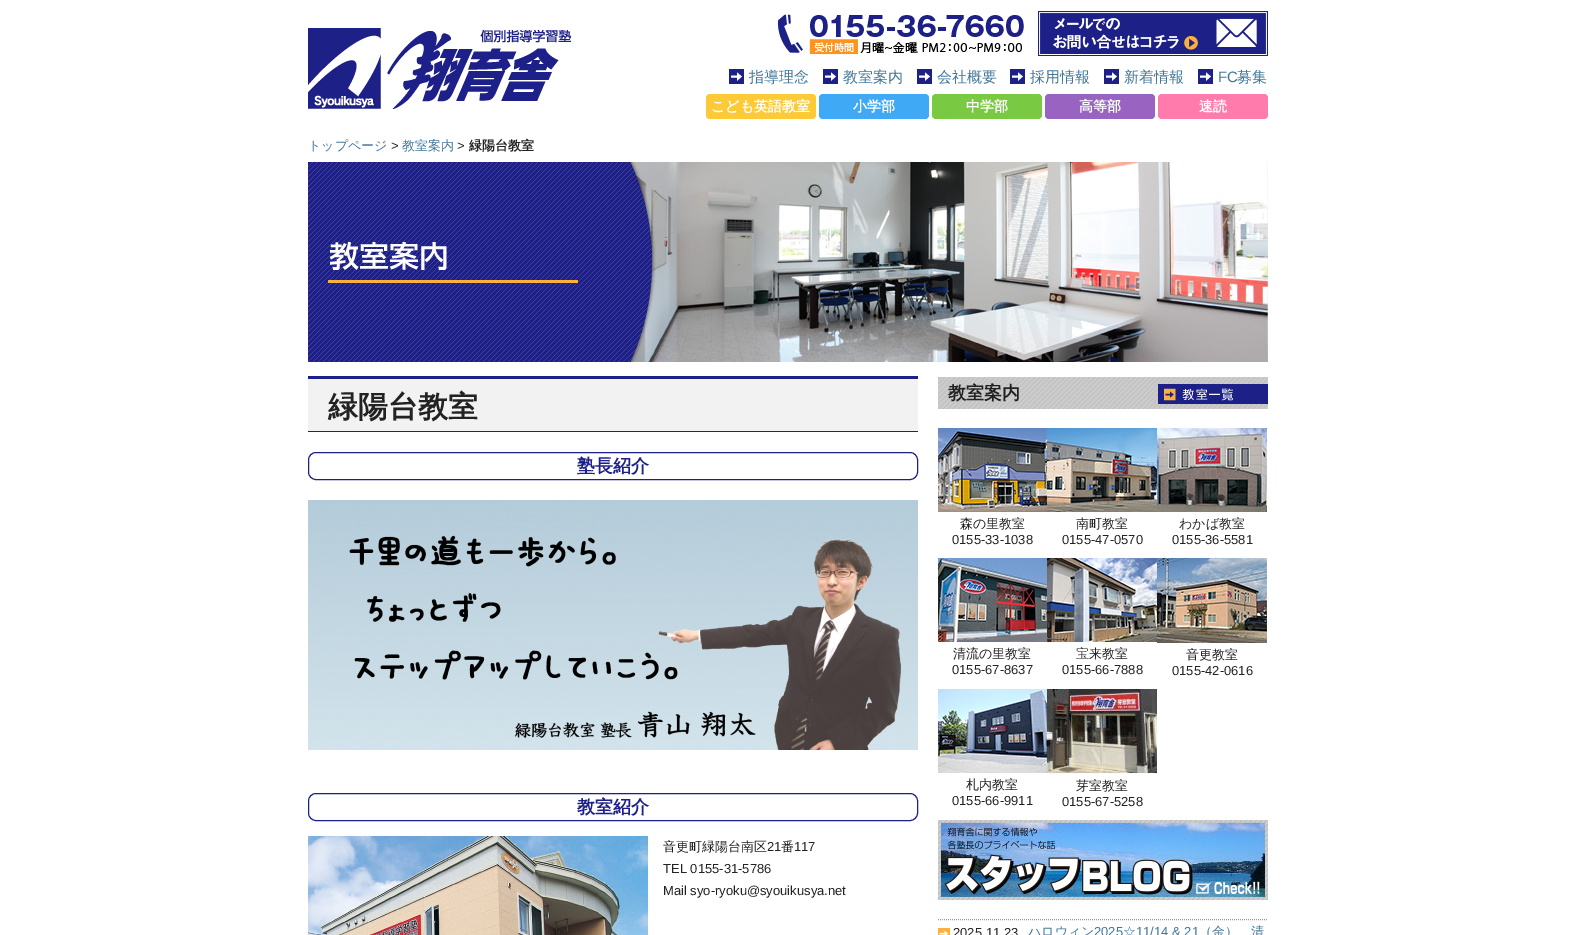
%!PS
<< /PageSize [1575 935] >> setpagedevice
/roundrect { 5 dict begin { /r /h /w /y /x } { exch def } forall
  x r add y moveto x w add y 2 copy h add r arct x w add y h add x 1 index r arct
  x y h add x y r arct x y 2 copy exch w add exch r arct closepath end } def
/picture { 5 dict begin { /h /w /y /x /name } { exch def } forall
  gsave x y translate w h scale
  w h 8 [w 0 0 h 0 0] name (r) file false 3 colorimage grestore end } def
0 935 translate 1 -1 scale
4 setmiterlimit
1 setgray
0 0 1575 935 rectfill
(img1.rgb) 308 28 263 81 picture
(img2.rgb) 778 14 246 41 picture
(img3.rgb) 1038 11 230 45 picture
(img4.rgb) 729 69 15 15 picture
/WenQuanYiZenHei-Medium [15 0 0 -15 0 0] selectfont
0.255 0.463 0.596 setrgbcolor
749 82 moveto (指導理念) show
(img4.rgb) 823 69 15 15 picture
843 82 moveto (教室案内) show
(img4.rgb) 917 69 15 15 picture
937 82 moveto (会社概要) show
(img4.rgb) 1010 69 15 15 picture
1030 82 moveto (採用情報) show
(img4.rgb) 1104 69 15 15 picture
1124 82 moveto (新着情報) show
(img4.rgb) 1198 69 15 15 picture
/LiberationSans-Regular [15 0 0 -15 0 0] selectfont
1218 82 moveto (FC) show
/WenQuanYiZenHei-Medium [15 0 0 -15 0 0] selectfont
1237 82 moveto (募集) show
0.988 0.792 0.216 setrgbcolor
706 94 110 25 4 roundrect fill
/WenQuanYiZenHei-Bold [14 0 0 -14 0 0] selectfont
1 setgray
711 111 moveto (こども英語教室) show
0.247 0.663 0.961 setrgbcolor
819 94 110 25 4 roundrect fill
1 setgray
853 111 moveto (小学部) show
0.478 0.788 0.263 setrgbcolor
932 94 110 25 4 roundrect fill
1 setgray
966 111 moveto (中学部) show
0.596 0.388 0.757 setrgbcolor
1045 94 110 25 4 roundrect fill
1 setgray
1079 111 moveto (高等部) show
1 0.482 0.675 setrgbcolor
1158 94 110 25 4 roundrect fill
1 setgray
1199 111 moveto (速読) show
/WenQuanYiZenHei-Medium [13 0 0 -13 0 0] selectfont
0.255 0.463 0.596 setrgbcolor
308 150 moveto (トップページ) show
/LiberationSans-Regular [13 0 0 -13 0 0] selectfont
0.133 setgray
391 150 moveto (>) show
/WenQuanYiZenHei-Medium [13 0 0 -13 0 0] selectfont
0.255 0.463 0.596 setrgbcolor
402 150 moveto (教室案内) show
/LiberationSans-Regular [13 0 0 -13 0 0] selectfont
0.133 setgray
457 150 moveto (>) show
/WenQuanYiZenHei-Bold [13 0 0 -13 0 0] selectfont
469 150 moveto (緑陽台教室) show
(img5.rgb) 308 162 960 200 picture
0.949 setgray
308 379 610 52 rectfill
0.114 0.125 0.529 setrgbcolor
308 376 610 3 rectfill
308 431 610 1 rectfill
/WenQuanYiZenHei-Bold [30 0 0 -30 0 0] selectfont
0.133 setgray
328 417 moveto (緑陽台教室) show
0.114 0.125 0.529 setrgbcolor
308.5 452.5 609 27 7.5 roundrect stroke
/WenQuanYiZenHei-Bold [18 0 0 -18 0 0] selectfont
577 472 moveto (塾長紹介) show
(img6.rgb) 308 500 610 250 picture
308.5 793.5 609 27 7.5 roundrect stroke
577 813 moveto (教室紹介) show
(img7.rgb) 308 836 340 99 picture
/WenQuanYiZenHei-Medium [13 0 0 -13 0 0] selectfont
0.133 setgray
663 851 moveto (音更町緑陽台南区) show
/LiberationSans-Regular [13 0 0 -13 0 0] selectfont
767 851 moveto (21) show
/WenQuanYiZenHei-Medium [13 0 0 -13 0 0] selectfont
781 851 moveto (番) show
/LiberationSans-Regular [13 0 0 -13 0 0] selectfont
794 851 moveto (117) show
663 873 moveto (TEL 0155-31-5786) show
663 895 moveto (Mail syo-ryoku@syouikusya.net) show
(img8.rgb) 938 377 330 32 picture
/WenQuanYiZenHei-Bold [18 0 0 -18 0 0] selectfont
948 399 moveto (教室案内) show
(img9.rgb) 1158 384 110 20 picture
(img10.rgb) 938 428 109 84 picture
/WenQuanYiZenHei-Medium [13 0 0 -13 0 0] selectfont
960 528 moveto (森の里教室) show
/LiberationSans-Regular [13 0 0 -13 0 0] selectfont
952 544 moveto (0155-33-1038) show
(img11.rgb) 1047 428 110 84 picture
/WenQuanYiZenHei-Medium [13 0 0 -13 0 0] selectfont
1076 528 moveto (南町教室) show
/LiberationSans-Regular [13 0 0 -13 0 0] selectfont
1062 544 moveto (0155-47-0570) show
(img12.rgb) 1157 428 110 84 picture
/WenQuanYiZenHei-Medium [13 0 0 -13 0 0] selectfont
1179 528 moveto (わかば教室) show
/LiberationSans-Regular [13 0 0 -13 0 0] selectfont
1172 544 moveto (0155-36-5581) show
(img13.rgb) 938 558 109 84 picture
/WenQuanYiZenHei-Medium [13 0 0 -13 0 0] selectfont
953 658 moveto (清流の里教室) show
/LiberationSans-Regular [13 0 0 -13 0 0] selectfont
952 674 moveto (0155-67-8637) show
(img14.rgb) 1047 558 110 84 picture
/WenQuanYiZenHei-Medium [13 0 0 -13 0 0] selectfont
1076 658 moveto (宝来教室) show
/LiberationSans-Regular [13 0 0 -13 0 0] selectfont
1062 674 moveto (0155-66-7888) show
(img15.rgb) 1157 558 110 85 picture
/WenQuanYiZenHei-Medium [13 0 0 -13 0 0] selectfont
1186 659 moveto (音更教室) show
/LiberationSans-Regular [13 0 0 -13 0 0] selectfont
1172 675 moveto (0155-42-0616) show
(img16.rgb) 938 689 109 84 picture
/WenQuanYiZenHei-Medium [13 0 0 -13 0 0] selectfont
966 789 moveto (札内教室) show
/LiberationSans-Regular [13 0 0 -13 0 0] selectfont
952 805 moveto (0155-66-9911) show
(img17.rgb) 1047 689 110 85 picture
/WenQuanYiZenHei-Medium [13 0 0 -13 0 0] selectfont
1076 790 moveto (芽室教室) show
/LiberationSans-Regular [13 0 0 -13 0 0] selectfont
1062 806 moveto (0155-67-5258) show
(img18.rgb) 938 820 330 80 picture
0.6 setgray
[1 1] 0 setdash
newpath 938 919.5 moveto 1268 919.5 lineto stroke
(img19.rgb) 938 928 12 7 picture
0.133 setgray
953 937 moveto (2025.11.23) show
/WenQuanYiZenHei-Medium [13 0 0 -13 0 0] selectfont
0.255 0.463 0.596 setrgbcolor
1028 936 moveto (ハロウィン) show
/LiberationSans-Regular [13 0 0 -13 0 0] selectfont
1094 936 moveto (2025) show
/WenQuanYiZenHei-Medium [13 0 0 -13 0 0] selectfont
1123 936 moveto (☆) show
/LiberationSans-Regular [13 0 0 -13 0 0] selectfont
1136 936 moveto (11/14 & 21) show
/WenQuanYiZenHei-Medium [13 0 0 -13 0 0] selectfont
1199 936 moveto (（金）　清) show
showpage
